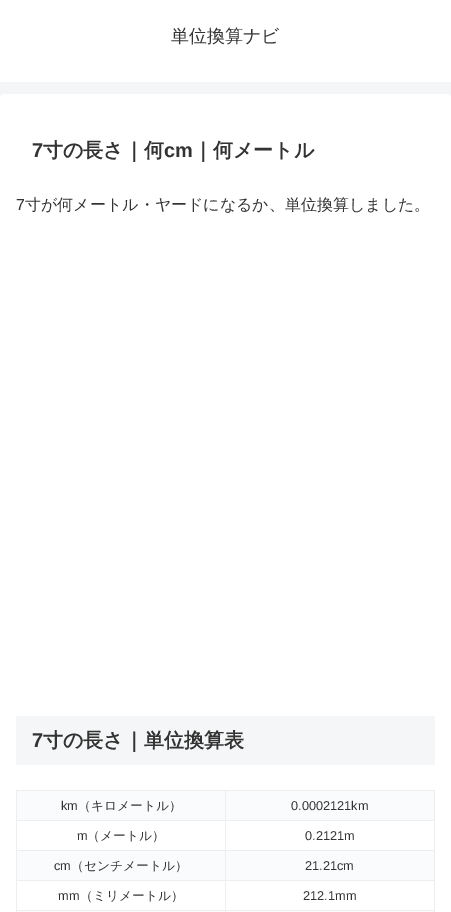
%!PS
<< /PageSize [451 912] >> setpagedevice
/roundrect { 5 dict begin { /r /h /w /y /x } { exch def } forall
  x r add y moveto x w add y 2 copy h add r arct x w add y h add x 1 index r arct
  x y h add x y r arct x y 2 copy exch w add exch r arct closepath end } def
0 912 translate 1 -1 scale
4 setmiterlimit
0.957 0.961 0.969 setrgbcolor
0 0 451 912 rectfill
1 setgray
0 0 451 82 rectfill
/WenQuanYiZenHei-Medium [18 0 0 -18 0 0] selectfont
0.2 setgray
171 42 moveto (単位換算ナビ) show
1 setgray
0 94 451 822 4 roundrect fill
/LiberationSans-Bold [20 0 0 -20 0 0] selectfont
0.2 setgray
32 157 moveto (7) show
/WenQuanYiZenHei-Bold [20 0 0 -20 0 0] selectfont
43 157 moveto (寸の長さ｜何) show
/LiberationSans-Bold [20 0 0 -20 0 0] selectfont
164 157 moveto (cm) show
/WenQuanYiZenHei-Bold [20 0 0 -20 0 0] selectfont
193 157 moveto (｜何メートル) show
/LiberationSans-Regular [16 0 0 -16 0 0] selectfont
16 210 moveto (7) show
/WenQuanYiZenHei-Medium [16 0 0 -16 0 0] selectfont
25 210 moveto (寸が何メートル・ヤードになるか、単位換算しました。) show
0.961 0.965 0.969 setrgbcolor
16 716 419 49 2 roundrect fill
/LiberationSans-Bold [20 0 0 -20 0 0] selectfont
0.2 setgray
32 747 moveto (7) show
/WenQuanYiZenHei-Bold [20 0 0 -20 0 0] selectfont
43 747 moveto (寸の長さ｜単位換算表) show
0.98 0.984 0.988 setrgbcolor
17 791 417 29 rectfill
0.933 setgray
225 790 210 1 rectfill
225 820 210 1 rectfill
225 850 210 1 rectfill
0.98 0.984 0.988 setrgbcolor
17 851 417 29 rectfill
0.933 setgray
225 880 210 1 rectfill
225 910 210 1 rectfill
0.98 0.984 0.988 setrgbcolor
17 911 418 1 rectfill
0.933 setgray
225 910 1 2 rectfill
16 910 210 1 rectfill
225 880 1 31 rectfill
16 880 210 1 rectfill
225 850 1 31 rectfill
16 850 210 1 rectfill
225 820 1 31 rectfill
16 820 210 1 rectfill
225 790 1 31 rectfill
16 790 210 1 rectfill
16 910 1 2 rectfill
16 880 1 31 rectfill
16 850 1 31 rectfill
16 820 1 31 rectfill
16 790 1 31 rectfill
/LiberationSans-Regular [12.75 0 0 -12.75 0 0] selectfont
0.2 setgray
61 810 moveto (km) show
/WenQuanYiZenHei-Medium [12.75 0 0 -12.75 0 0] selectfont
78 810 moveto (（キロメートル）) show
0.933 setgray
434 910 1 2 rectfill
434 880 1 31 rectfill
434 850 1 31 rectfill
434 820 1 31 rectfill
434 790 1 31 rectfill
/LiberationSans-Regular [12.75 0 0 -12.75 0 0] selectfont
0.2 setgray
291 810 moveto (0.0002121km) show
77 840 moveto (m) show
/WenQuanYiZenHei-Medium [12.75 0 0 -12.75 0 0] selectfont
87 840 moveto (（メートル）) show
/LiberationSans-Regular [12.75 0 0 -12.75 0 0] selectfont
305 840 moveto (0.2121m) show
54 870 moveto (cm) show
/WenQuanYiZenHei-Medium [12.75 0 0 -12.75 0 0] selectfont
71 870 moveto (（センチメートル）) show
/LiberationSans-Regular [12.75 0 0 -12.75 0 0] selectfont
305 870 moveto (21.21cm) show
58 900 moveto (mm) show
/WenQuanYiZenHei-Medium [12.75 0 0 -12.75 0 0] selectfont
80 900 moveto (（ミリメートル）) show
/LiberationSans-Regular [12.75 0 0 -12.75 0 0] selectfont
303 900 moveto (212.1mm) show
showpage
